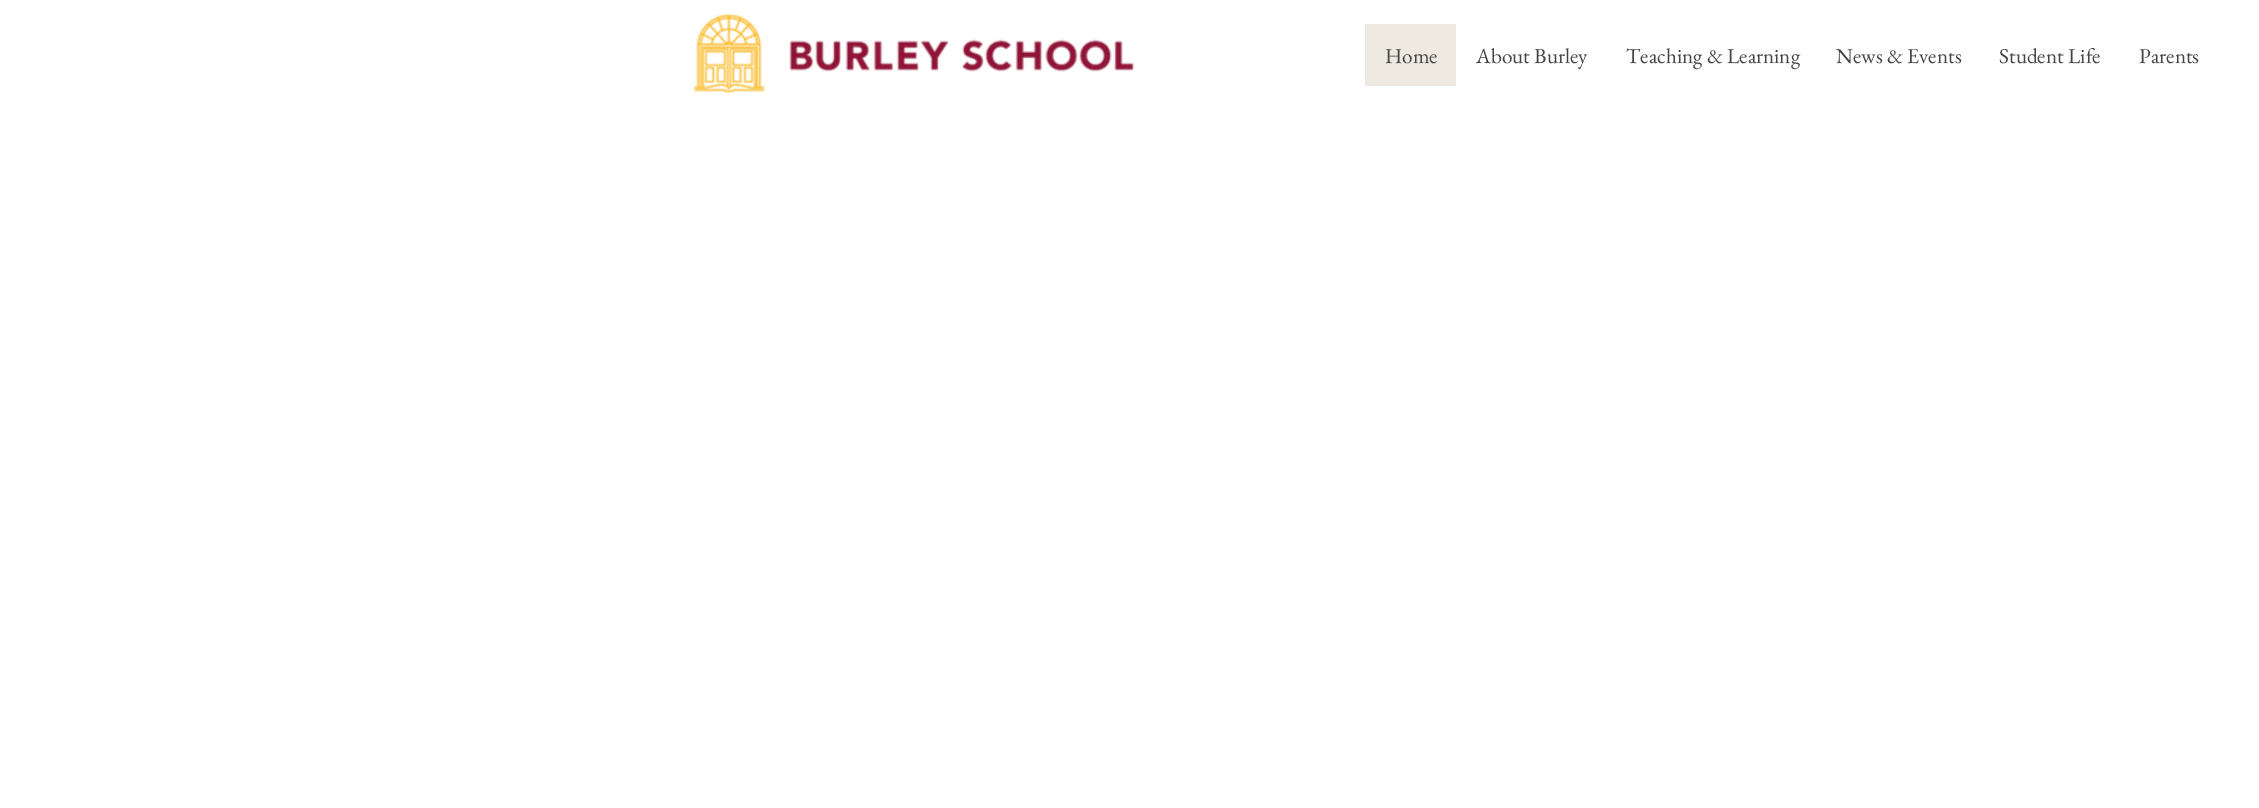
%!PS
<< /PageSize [2259 808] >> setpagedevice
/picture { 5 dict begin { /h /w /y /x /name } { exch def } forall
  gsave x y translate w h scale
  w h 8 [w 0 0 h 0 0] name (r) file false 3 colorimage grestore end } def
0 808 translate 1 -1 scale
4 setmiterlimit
1 setgray
0 0 2259 808 rectfill
(img1.rgb) 693 13 442 80 picture
0.929 0.914 0.882 setrgbcolor
1365 24 91 62 rectfill
/EBGaramond-Regular [21.25 0 0 -21.25 0 0] selectfont
0.267 setgray
1385 63 moveto (Home) show
1476 63 moveto (About Burley) show
1626 63 moveto (Teaching & Learning) show
1836 63 moveto (News & Events) show
1999 63 moveto (Student Life) show
2139 63 moveto (Parents) show
showpage
